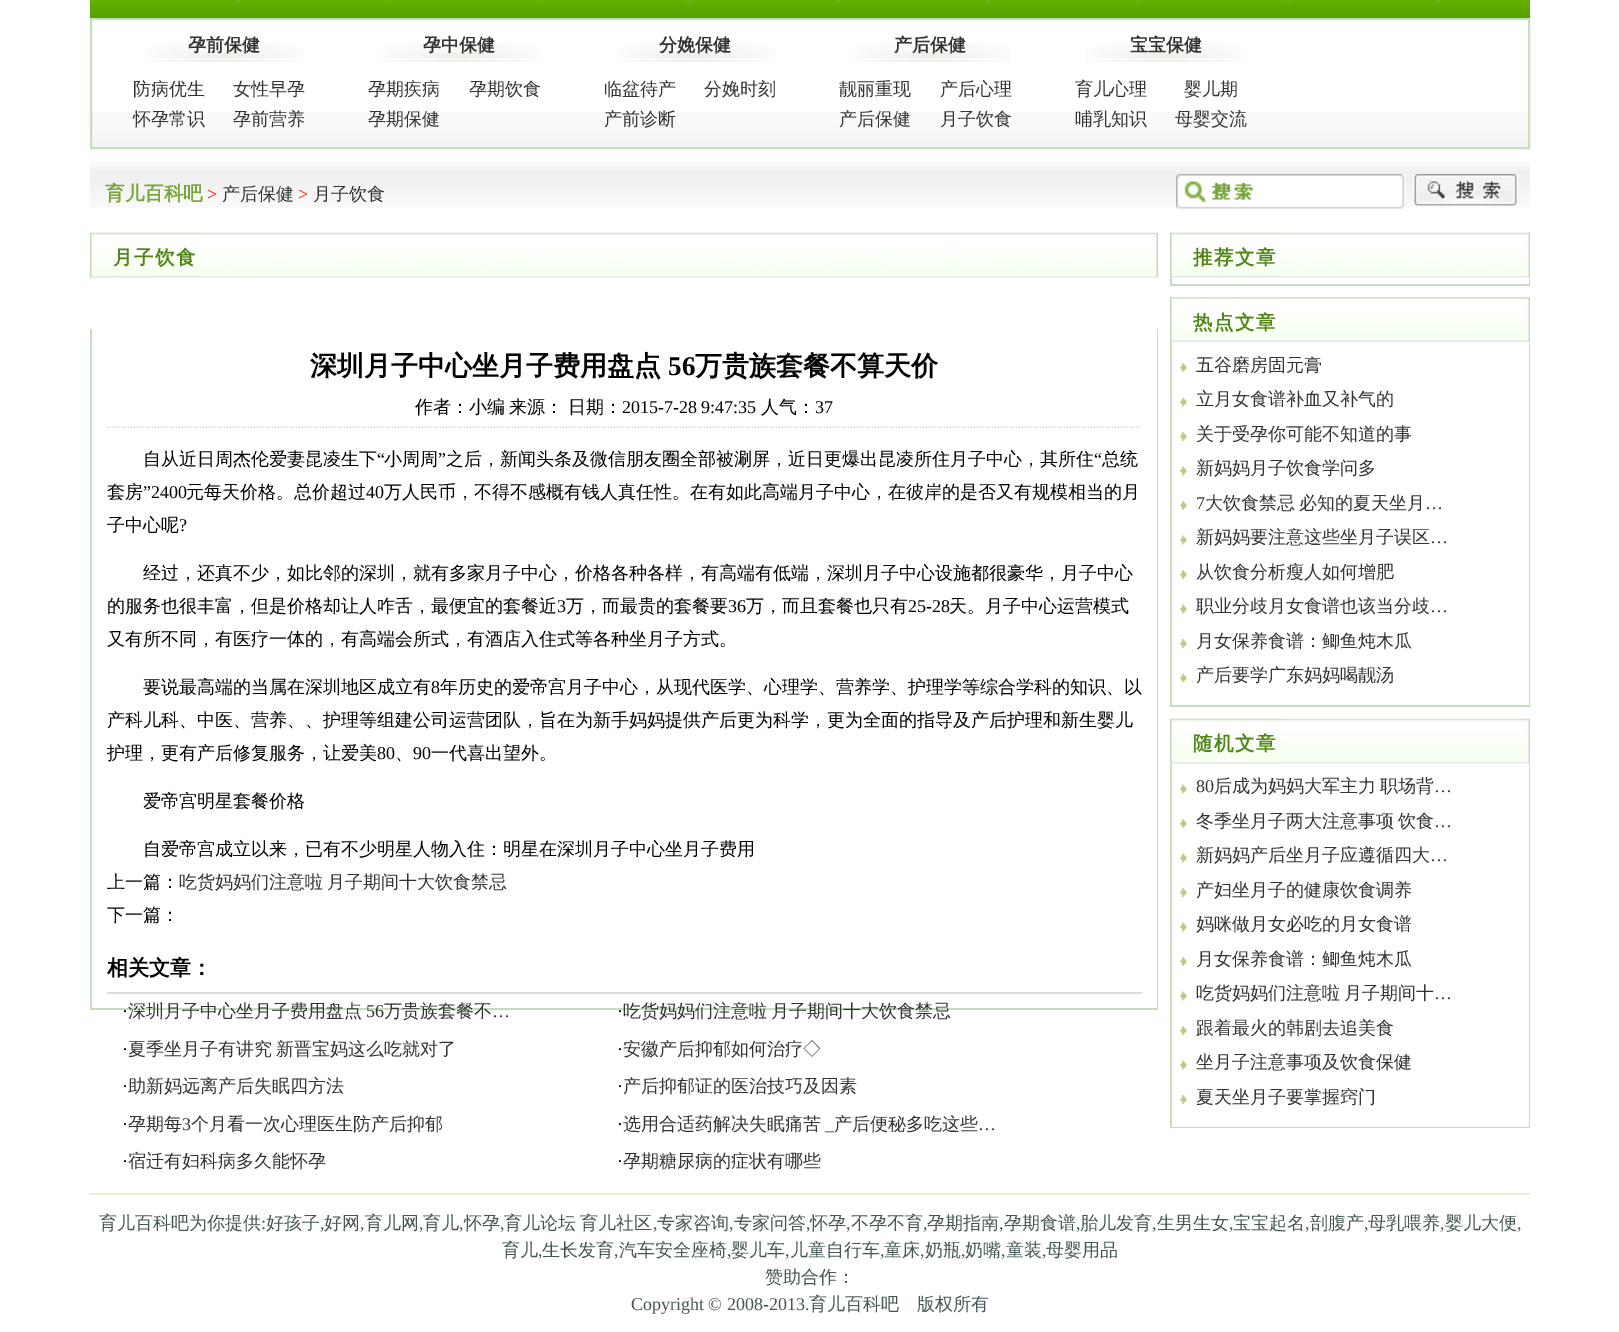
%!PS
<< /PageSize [1619 1332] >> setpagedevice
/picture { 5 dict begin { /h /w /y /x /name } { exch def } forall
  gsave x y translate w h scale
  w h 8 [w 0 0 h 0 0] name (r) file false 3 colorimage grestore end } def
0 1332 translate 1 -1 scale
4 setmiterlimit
1 setgray
0 0 1619 1332 rectfill
(img1.rgb) 90 0 1440 18 picture
0.443 0.698 0.141 setrgbcolor
237 0 3 3 rectfill
0.427 0.682 0.122 setrgbcolor
387 0 3 3 rectfill
0.443 0.698 0.141 setrgbcolor
537 0 3 3 rectfill
687 0 3 3 rectfill
837 0 3 3 rectfill
987 0 3 3 rectfill
0.427 0.682 0.122 setrgbcolor
1137 0 3 3 rectfill
1287 0 3 3 rectfill
0.443 0.698 0.141 setrgbcolor
1437 0 3 3 rectfill
(img2.rgb) 92 112 1436 35 picture
0.773 0.871 0.749 setrgbcolor
2 setlinewidth
91 19 1438 129 rectstroke
(img3.rgb) 143 43 162 19 picture
/WenQuanYiZenHei-Bold [18 0 0 -18 0 0] selectfont
0.2 setgray
188 51 moveto (孕前保健) show
/WenQuanYiZenHei-Medium [18 0 0 -18 0 0] selectfont
133 95 moveto (防病优生) show
233 95 moveto (女性早孕) show
133 125 moveto (怀孕常识) show
233 125 moveto (孕前营养) show
(img4.rgb) 379 43 161 19 picture
/WenQuanYiZenHei-Bold [18 0 0 -18 0 0] selectfont
423 51 moveto (孕中保健) show
/WenQuanYiZenHei-Medium [18 0 0 -18 0 0] selectfont
368 95 moveto (孕期疾病) show
469 95 moveto (孕期饮食) show
368 125 moveto (孕期保健) show
(img5.rgb) 614 43 162 19 picture
/WenQuanYiZenHei-Bold [18 0 0 -18 0 0] selectfont
659 51 moveto (分娩保健) show
/WenQuanYiZenHei-Medium [18 0 0 -18 0 0] selectfont
604 95 moveto (临盆待产) show
704 95 moveto (分娩时刻) show
604 125 moveto (产前诊断) show
(img6.rgb) 850 43 161 19 picture
/WenQuanYiZenHei-Bold [18 0 0 -18 0 0] selectfont
894 51 moveto (产后保健) show
/WenQuanYiZenHei-Medium [18 0 0 -18 0 0] selectfont
839 95 moveto (靓丽重现) show
940 95 moveto (产后心理) show
839 125 moveto (产后保健) show
940 125 moveto (月子饮食) show
(img7.rgb) 1085 43 162 19 picture
/WenQuanYiZenHei-Bold [18 0 0 -18 0 0] selectfont
1130 51 moveto (宝宝保健) show
/WenQuanYiZenHei-Medium [18 0 0 -18 0 0] selectfont
1075 95 moveto (育儿心理) show
1184 95 moveto (婴儿期) show
1075 125 moveto (哺乳知识) show
1175 125 moveto (母婴交流) show
(img8.rgb) 90 162 1440 46 picture
/WenQuanYiZenHei-Bold [19.5 0 0 -19.5 0 0] selectfont
0.471 0.651 0.235 setrgbcolor
105 200 moveto (育儿百科吧) show
/LiberationSerif-Regular [18 0 0 -18 0 0] selectfont
1 0 0 setrgbcolor
207 200 moveto (>) show
/WenQuanYiZenHei-Medium [18 0 0 -18 0 0] selectfont
0.2 setgray
222 200 moveto (产后保健) show
/LiberationSerif-Regular [18 0 0 -18 0 0] selectfont
1 0 0 setrgbcolor
298 200 moveto (>) show
/WenQuanYiZenHei-Medium [18 0 0 -18 0 0] selectfont
0.2 setgray
313 200 moveto (月子饮食) show
(img9.rgb) 1176 174 230 35 picture
(img10.rgb) 1413 174 105 33 picture
(img11.rgb) 90 232 1068 46 picture
(img12.rgb) 90 232 113 46 picture
/WenQuanYiZenHei-Bold [19.5 0 0 -19.5 0 0] selectfont
0.318 0.529 0.098 setrgbcolor
113 264 moveto 1.5 0 (月子饮食) ashow
0.773 0.867 0.737 setrgbcolor
1157 329 1 681 rectfill
90 1008 1068 2 rectfill
90 329 2 681 rectfill
/WenQuanYiZenHei-Bold [27 0 0 -27 0 0] selectfont
0 setgray
310 375 moveto (深圳月子中心坐月子费用盘点) show
/LiberationSerif-Bold [27 0 0 -27 0 0] selectfont
668 375 moveto (56) show
/WenQuanYiZenHei-Bold [27 0 0 -27 0 0] selectfont
695 375 moveto (万贵族套餐不算天价) show
0.867 setgray
1.5 setlinewidth
[1.5 1.5] 0 setdash
newpath 106.5 427 moveto 1141.5 427 lineto stroke
/WenQuanYiZenHei-Medium [18 0 0 -18 0 0] selectfont
0 setgray
415 413 moveto (作者：小编) show
509 413 moveto (来源：) show
568 413 moveto (日期：) show
/LiberationSerif-Regular [18 0 0 -18 0 0] selectfont
622 413 moveto (2015-7-28 9:47:35) show
/WenQuanYiZenHei-Medium [18 0 0 -18 0 0] selectfont
761 413 moveto (人气：) show
/LiberationSerif-Regular [18 0 0 -18 0 0] selectfont
815 413 moveto (37) show
/WenQuanYiZenHei-Medium [18 0 0 -18 0 0] selectfont
143 465 moveto (自从近日周杰伦爱妻昆凌生下) show
/LiberationSerif-Regular [18 0 0 -18 0 0] selectfont
377 465 moveto (“) show
/WenQuanYiZenHei-Medium [18 0 0 -18 0 0] selectfont
384 465 moveto (小周周) show
/LiberationSerif-Regular [18 0 0 -18 0 0] selectfont
438 465 moveto (”) show
/WenQuanYiZenHei-Medium [18 0 0 -18 0 0] selectfont
446 465 moveto (之后，新闻头条及微信朋友圈全部被涮屏，近日更爆出昆凌所住月子中心，其所住) show
/LiberationSerif-Regular [18 0 0 -18 0 0] selectfont
1094 465 moveto (“) show
/WenQuanYiZenHei-Medium [18 0 0 -18 0 0] selectfont
1102 465 moveto (总统) show
107 498 moveto (套房) show
/LiberationSerif-Regular [18 0 0 -18 0 0] selectfont
143 498 moveto (”2400) show
/WenQuanYiZenHei-Medium [18 0 0 -18 0 0] selectfont
186 498 moveto (元每天价格。总价超过) show
/LiberationSerif-Regular [18 0 0 -18 0 0] selectfont
366 498 moveto (40) show
/WenQuanYiZenHei-Medium [18 0 0 -18 0 0] selectfont
384 498 moveto (万人民币，不得不感概有钱人真任性。在有如此高端月子中心，在彼岸的是否又有规模相当的月) show
107 531 moveto (子中心呢) show
/LiberationSerif-Regular [18 0 0 -18 0 0] selectfont
179 531 moveto (?) show
/WenQuanYiZenHei-Medium [18 0 0 -18 0 0] selectfont
143 579 moveto (经过，还真不少，如比邻的深圳，就有多家月子中心，价格各种各样，有高端有低端，深圳月子中心设施都很豪华，月子中心) show
107 612 moveto (的服务也很丰富，但是价格却让人咋舌，最便宜的套餐近) show
/LiberationSerif-Regular [18 0 0 -18 0 0] selectfont
557 612 moveto (3) show
/WenQuanYiZenHei-Medium [18 0 0 -18 0 0] selectfont
566 612 moveto (万，而最贵的套餐要) show
/LiberationSerif-Regular [18 0 0 -18 0 0] selectfont
728 612 moveto (36) show
/WenQuanYiZenHei-Medium [18 0 0 -18 0 0] selectfont
746 612 moveto (万，而且套餐也只有) show
/LiberationSerif-Regular [18 0 0 -18 0 0] selectfont
908 612 moveto (25-28) show
/WenQuanYiZenHei-Medium [18 0 0 -18 0 0] selectfont
949 612 moveto (天。月子中心运营模式) show
107 645 moveto (又有所不同，有医疗一体的，有高端会所式，有酒店入住式等各种坐月子方式。) show
143 693 moveto (要说最高端的当属在深圳地区成立有) show
/LiberationSerif-Regular [18 0 0 -18 0 0] selectfont
431 693 moveto (8) show
/WenQuanYiZenHei-Medium [18 0 0 -18 0 0] selectfont
440 693 moveto (年历史的爱帝宫月子中心，从现代医学、心理学、营养学、护理学等综合学科的知识、以) show
107 726 moveto (产科儿科、中医、营养、、护理等组建公司运营团队，旨在为新手妈妈提供产后更为科学，更为全面的指导及产后护理和新生婴儿) show
107 759 moveto (护理，更有产后修复服务，让爱美) show
/LiberationSerif-Regular [18 0 0 -18 0 0] selectfont
377 759 moveto (80) show
/WenQuanYiZenHei-Medium [18 0 0 -18 0 0] selectfont
395 759 moveto (、) show
/LiberationSerif-Regular [18 0 0 -18 0 0] selectfont
413 759 moveto (90) show
/WenQuanYiZenHei-Medium [18 0 0 -18 0 0] selectfont
431 759 moveto (一代喜出望外。) show
143 807 moveto (爱帝宫明星套餐价格) show
143 855 moveto (自爱帝宫成立以来，已有不少明星人物入住：明星在深圳月子中心坐月子费用) show
107 888 moveto (上一篇：) show
0.2 setgray
179 888 moveto -1 0 32 (吃货妈妈们注意啦 月子期间十大饮食禁忌) widthshow
0 setgray
107 921 moveto (下一篇：) show
0.867 setgray
107 992 1035 2 rectfill
/WenQuanYiZenHei-Bold [21 0 0 -21 0 0] selectfont
0 setgray
107 975 moveto (相关文章：) show
/LiberationSerif-Regular [18 0 0 -18 0 0] selectfont
122 1017 moveto (·) show
/WenQuanYiZenHei-Medium [18 0 0 -18 0 0] selectfont
0.2 setgray
128 1017 moveto (深圳月子中心坐月子费用盘点) show
/LiberationSerif-Regular [18 0 0 -18 0 0] selectfont
366 1017 moveto (56) show
/WenQuanYiZenHei-Medium [18 0 0 -18 0 0] selectfont
384 1017 moveto (万贵族套餐不) show
/LiberationSerif-Regular [18 0 0 -18 0 0] selectfont
492 1017 moveto (…) show
0 setgray
617 1017 moveto (·) show
/WenQuanYiZenHei-Medium [18 0 0 -18 0 0] selectfont
0.2 setgray
623 1017 moveto (吃货妈妈们注意啦) show
771 1017 moveto (月子期间十大饮食禁忌) show
/LiberationSerif-Regular [18 0 0 -18 0 0] selectfont
0 setgray
122 1055 moveto (·) show
/WenQuanYiZenHei-Medium [18 0 0 -18 0 0] selectfont
0.2 setgray
128 1055 moveto (夏季坐月子有讲究) show
276 1055 moveto (新晋宝妈这么吃就对了) show
/LiberationSerif-Regular [18 0 0 -18 0 0] selectfont
0 setgray
617 1055 moveto (·) show
/WenQuanYiZenHei-Medium [18 0 0 -18 0 0] selectfont
0.2 setgray
623 1055 moveto (安徽产后抑郁如何治疗◇) show
/LiberationSerif-Regular [18 0 0 -18 0 0] selectfont
0 setgray
122 1092 moveto (·) show
/WenQuanYiZenHei-Medium [18 0 0 -18 0 0] selectfont
0.2 setgray
128 1092 moveto (助新妈远离产后失眠四方法) show
/LiberationSerif-Regular [18 0 0 -18 0 0] selectfont
0 setgray
617 1092 moveto (·) show
/WenQuanYiZenHei-Medium [18 0 0 -18 0 0] selectfont
0.2 setgray
623 1092 moveto (产后抑郁证的医治技巧及因素) show
/LiberationSerif-Regular [18 0 0 -18 0 0] selectfont
0 setgray
122 1130 moveto (·) show
/WenQuanYiZenHei-Medium [18 0 0 -18 0 0] selectfont
0.2 setgray
128 1130 moveto (孕期每) show
/LiberationSerif-Regular [18 0 0 -18 0 0] selectfont
182 1130 moveto (3) show
/WenQuanYiZenHei-Medium [18 0 0 -18 0 0] selectfont
191 1130 moveto (个月看一次心理医生防产后抑郁) show
/LiberationSerif-Regular [18 0 0 -18 0 0] selectfont
0 setgray
617 1130 moveto (·) show
/WenQuanYiZenHei-Medium [18 0 0 -18 0 0] selectfont
0.2 setgray
623 1130 moveto (选用合适药解决失眠痛苦) show
/LiberationSerif-Regular [18 0 0 -18 0 0] selectfont
825 1130 moveto (_) show
/WenQuanYiZenHei-Medium [18 0 0 -18 0 0] selectfont
834 1130 moveto (产后便秘多吃这些) show
/LiberationSerif-Regular [18 0 0 -18 0 0] selectfont
978 1130 moveto (…) show
0 setgray
122 1167 moveto (·) show
/WenQuanYiZenHei-Medium [18 0 0 -18 0 0] selectfont
0.2 setgray
128 1167 moveto (宿迁有妇科病多久能怀孕) show
/LiberationSerif-Regular [18 0 0 -18 0 0] selectfont
0 setgray
617 1167 moveto (·) show
/WenQuanYiZenHei-Medium [18 0 0 -18 0 0] selectfont
0.2 setgray
623 1167 moveto (孕期糖尿病的症状有哪些) show
0.773 0.867 0.737 setrgbcolor
1170 284 360 2 rectfill
(img13.rgb) 1170 232 360 46 picture
(img14.rgb) 1170 232 113 46 picture
/WenQuanYiZenHei-Bold [19.5 0 0 -19.5 0 0] selectfont
0.318 0.529 0.098 setrgbcolor
1193 264 moveto 1.5 0 (推荐文章) ashow
0.773 0.867 0.737 setrgbcolor
1529 278 1 6 rectfill
1170 278 2 6 rectfill
1170 705 360 2 rectfill
(img15.rgb) 1174 297 356 45 picture
(img16.rgb) 1170 297 4 45 picture
0.318 0.529 0.098 setrgbcolor
1193 329 moveto 1.5 0 (热点文章) ashow
0.773 0.867 0.737 setrgbcolor
1529 342 1 363 rectfill
1170 342 2 363 rectfill
(img17.rgb) 1180 363 7 9 picture
/WenQuanYiZenHei-Medium [18 0 0 -18 0 0] selectfont
0.2 setgray
1196 371 moveto (五谷磨房固元膏) show
(img18.rgb) 1180 397 7 10 picture
1196 405 moveto (立月女食谱补血又补气的) show
(img17.rgb) 1180 432 7 9 picture
1196 440 moveto (关于受孕你可能不知道的事) show
(img18.rgb) 1180 466 7 10 picture
1196 474 moveto (新妈妈月子饮食学问多) show
(img17.rgb) 1180 501 7 9 picture
/LiberationSerif-Regular [18 0 0 -18 0 0] selectfont
1196 509 moveto (7) show
/WenQuanYiZenHei-Medium [18 0 0 -18 0 0] selectfont
1205 509 moveto (大饮食禁忌) show
1299 509 moveto (必知的夏天坐月) show
/LiberationSerif-Regular [18 0 0 -18 0 0] selectfont
1425 509 moveto (…) show
(img18.rgb) 1180 535 7 10 picture
/WenQuanYiZenHei-Medium [18 0 0 -18 0 0] selectfont
1196 543 moveto (新妈妈要注意这些坐月子误区) show
/LiberationSerif-Regular [18 0 0 -18 0 0] selectfont
1430 543 moveto (…) show
(img17.rgb) 1180 570 7 9 picture
/WenQuanYiZenHei-Medium [18 0 0 -18 0 0] selectfont
1196 578 moveto (从饮食分析瘦人如何增肥) show
(img18.rgb) 1180 604 7 10 picture
1196 612 moveto (职业分歧月女食谱也该当分歧) show
/LiberationSerif-Regular [18 0 0 -18 0 0] selectfont
1430 612 moveto (…) show
(img17.rgb) 1180 639 7 9 picture
/WenQuanYiZenHei-Medium [18 0 0 -18 0 0] selectfont
1196 647 moveto (月女保养食谱：鲫鱼炖木瓜) show
(img18.rgb) 1180 673 7 10 picture
1196 681 moveto (产后要学广东妈妈喝靓汤) show
0.773 0.867 0.737 setrgbcolor
1170 1127 360 1 rectfill
(img13.rgb) 1170 718 360 46 picture
(img14.rgb) 1170 718 113 46 picture
/WenQuanYiZenHei-Bold [19.5 0 0 -19.5 0 0] selectfont
0.318 0.529 0.098 setrgbcolor
1193 750 moveto 1.5 0 (随机文章) ashow
0.773 0.867 0.737 setrgbcolor
1529 764 1 363 rectfill
1170 764 2 363 rectfill
(img18.rgb) 1180 784 7 10 picture
/LiberationSerif-Regular [18 0 0 -18 0 0] selectfont
0.2 setgray
1196 792 moveto (80) show
/WenQuanYiZenHei-Medium [18 0 0 -18 0 0] selectfont
1214 792 moveto (后成为妈妈大军主力) show
1380 792 moveto (职场背) show
/LiberationSerif-Regular [18 0 0 -18 0 0] selectfont
1434 792 moveto (…) show
(img17.rgb) 1180 819 7 9 picture
/WenQuanYiZenHei-Medium [18 0 0 -18 0 0] selectfont
1196 827 moveto (冬季坐月子两大注意事项) show
1398 827 moveto (饮食) show
/LiberationSerif-Regular [18 0 0 -18 0 0] selectfont
1434 827 moveto (…) show
(img18.rgb) 1180 853 7 10 picture
/WenQuanYiZenHei-Medium [18 0 0 -18 0 0] selectfont
1196 861 moveto (新妈妈产后坐月子应遵循四大) show
/LiberationSerif-Regular [18 0 0 -18 0 0] selectfont
1430 861 moveto (…) show
(img17.rgb) 1180 888 7 9 picture
/WenQuanYiZenHei-Medium [18 0 0 -18 0 0] selectfont
1196 896 moveto (产妇坐月子的健康饮食调养) show
(img18.rgb) 1180 922 7 10 picture
1196 930 moveto (妈咪做月女必吃的月女食谱) show
(img17.rgb) 1180 957 7 9 picture
1196 965 moveto (月女保养食谱：鲫鱼炖木瓜) show
(img18.rgb) 1180 991 7 10 picture
1196 999 moveto (吃货妈妈们注意啦) show
1344 999 moveto (月子期间十) show
/LiberationSerif-Regular [18 0 0 -18 0 0] selectfont
1434 999 moveto (…) show
(img17.rgb) 1180 1026 7 9 picture
/WenQuanYiZenHei-Medium [18 0 0 -18 0 0] selectfont
1196 1034 moveto (跟着最火的韩剧去追美食) show
(img18.rgb) 1180 1060 7 10 picture
1196 1068 moveto (坐月子注意事项及饮食保健) show
(img17.rgb) 1180 1095 7 9 picture
1196 1103 moveto (夏天坐月子要掌握窍门) show
0.898 0.937 0.839 setrgbcolor
90 1193 1440 2 rectfill
0.267 0.333 0.333 setrgbcolor
99 1229 moveto (育儿百科吧为你提供) show
/LiberationSerif-Regular [18 0 0 -18 0 0] selectfont
261 1229 moveto (:) show
/WenQuanYiZenHei-Medium [18 0 0 -18 0 0] selectfont
266 1229 moveto (好孩子) show
/LiberationSerif-Regular [18 0 0 -18 0 0] selectfont
320 1229 moveto (,) show
/WenQuanYiZenHei-Medium [18 0 0 -18 0 0] selectfont
324 1229 moveto (好网) show
/LiberationSerif-Regular [18 0 0 -18 0 0] selectfont
360 1229 moveto (,) show
/WenQuanYiZenHei-Medium [18 0 0 -18 0 0] selectfont
365 1229 moveto (育儿网) show
/LiberationSerif-Regular [18 0 0 -18 0 0] selectfont
419 1229 moveto (,) show
/WenQuanYiZenHei-Medium [18 0 0 -18 0 0] selectfont
423 1229 moveto (育儿) show
/LiberationSerif-Regular [18 0 0 -18 0 0] selectfont
459 1229 moveto (,) show
/WenQuanYiZenHei-Medium [18 0 0 -18 0 0] selectfont
464 1229 moveto (怀孕) show
/LiberationSerif-Regular [18 0 0 -18 0 0] selectfont
500 1229 moveto (,) show
/WenQuanYiZenHei-Medium [18 0 0 -18 0 0] selectfont
504 1229 moveto -1 0 32 (育儿论坛 育儿社区) widthshow
/LiberationSerif-Regular [18 0 0 -18 0 0] selectfont
653 1229 moveto (,) show
/WenQuanYiZenHei-Medium [18 0 0 -18 0 0] selectfont
657 1229 moveto (专家咨询) show
/LiberationSerif-Regular [18 0 0 -18 0 0] selectfont
729 1229 moveto (,) show
/WenQuanYiZenHei-Medium [18 0 0 -18 0 0] selectfont
734 1229 moveto (专家问答) show
/LiberationSerif-Regular [18 0 0 -18 0 0] selectfont
806 1229 moveto (,) show
/WenQuanYiZenHei-Medium [18 0 0 -18 0 0] selectfont
810 1229 moveto (怀孕) show
/LiberationSerif-Regular [18 0 0 -18 0 0] selectfont
846 1229 moveto (,) show
/WenQuanYiZenHei-Medium [18 0 0 -18 0 0] selectfont
851 1229 moveto (不孕不育) show
/LiberationSerif-Regular [18 0 0 -18 0 0] selectfont
923 1229 moveto (,) show
/WenQuanYiZenHei-Medium [18 0 0 -18 0 0] selectfont
927 1229 moveto (孕期指南) show
/LiberationSerif-Regular [18 0 0 -18 0 0] selectfont
999 1229 moveto (,) show
/WenQuanYiZenHei-Medium [18 0 0 -18 0 0] selectfont
1004 1229 moveto (孕期食谱) show
/LiberationSerif-Regular [18 0 0 -18 0 0] selectfont
1076 1229 moveto (,) show
/WenQuanYiZenHei-Medium [18 0 0 -18 0 0] selectfont
1080 1229 moveto (胎儿发育) show
/LiberationSerif-Regular [18 0 0 -18 0 0] selectfont
1152 1229 moveto (,) show
/WenQuanYiZenHei-Medium [18 0 0 -18 0 0] selectfont
1157 1229 moveto (生男生女) show
/LiberationSerif-Regular [18 0 0 -18 0 0] selectfont
1229 1229 moveto (,) show
/WenQuanYiZenHei-Medium [18 0 0 -18 0 0] selectfont
1233 1229 moveto (宝宝起名) show
/LiberationSerif-Regular [18 0 0 -18 0 0] selectfont
1305 1229 moveto (,) show
/WenQuanYiZenHei-Medium [18 0 0 -18 0 0] selectfont
1310 1229 moveto (剖腹产) show
/LiberationSerif-Regular [18 0 0 -18 0 0] selectfont
1364 1229 moveto (,) show
/WenQuanYiZenHei-Medium [18 0 0 -18 0 0] selectfont
1368 1229 moveto (母乳喂养) show
/LiberationSerif-Regular [18 0 0 -18 0 0] selectfont
1440 1229 moveto (,) show
/WenQuanYiZenHei-Medium [18 0 0 -18 0 0] selectfont
1445 1229 moveto (婴儿大便) show
/LiberationSerif-Regular [18 0 0 -18 0 0] selectfont
1517 1229 moveto (,) show
/WenQuanYiZenHei-Medium [18 0 0 -18 0 0] selectfont
502 1256 moveto (育儿) show
/LiberationSerif-Regular [18 0 0 -18 0 0] selectfont
538 1256 moveto (,) show
/WenQuanYiZenHei-Medium [18 0 0 -18 0 0] selectfont
542 1256 moveto (生长发育) show
/LiberationSerif-Regular [18 0 0 -18 0 0] selectfont
614 1256 moveto (,) show
/WenQuanYiZenHei-Medium [18 0 0 -18 0 0] selectfont
619 1256 moveto (汽车安全座椅) show
/LiberationSerif-Regular [18 0 0 -18 0 0] selectfont
727 1256 moveto (,) show
/WenQuanYiZenHei-Medium [18 0 0 -18 0 0] selectfont
731 1256 moveto (婴儿车) show
/LiberationSerif-Regular [18 0 0 -18 0 0] selectfont
785 1256 moveto (,) show
/WenQuanYiZenHei-Medium [18 0 0 -18 0 0] selectfont
790 1256 moveto (儿童自行车) show
/LiberationSerif-Regular [18 0 0 -18 0 0] selectfont
880 1256 moveto (,) show
/WenQuanYiZenHei-Medium [18 0 0 -18 0 0] selectfont
884 1256 moveto (童床) show
/LiberationSerif-Regular [18 0 0 -18 0 0] selectfont
920 1256 moveto (,) show
/WenQuanYiZenHei-Medium [18 0 0 -18 0 0] selectfont
925 1256 moveto (奶瓶) show
/LiberationSerif-Regular [18 0 0 -18 0 0] selectfont
961 1256 moveto (,) show
/WenQuanYiZenHei-Medium [18 0 0 -18 0 0] selectfont
965 1256 moveto (奶嘴) show
/LiberationSerif-Regular [18 0 0 -18 0 0] selectfont
1001 1256 moveto (,) show
/WenQuanYiZenHei-Medium [18 0 0 -18 0 0] selectfont
1006 1256 moveto (童装) show
/LiberationSerif-Regular [18 0 0 -18 0 0] selectfont
1042 1256 moveto (,) show
/WenQuanYiZenHei-Medium [18 0 0 -18 0 0] selectfont
1046 1256 moveto (母婴用品) show
765 1283 moveto (赞助合作：) show
/LiberationSerif-Regular [18 0 0 -18 0 0] selectfont
631 1310 moveto (Copyright © 2008-2013.) show
/WenQuanYiZenHei-Medium [18 0 0 -18 0 0] selectfont
809 1310 moveto (育儿百科吧) show
917 1310 moveto (版权所有) show
showpage
